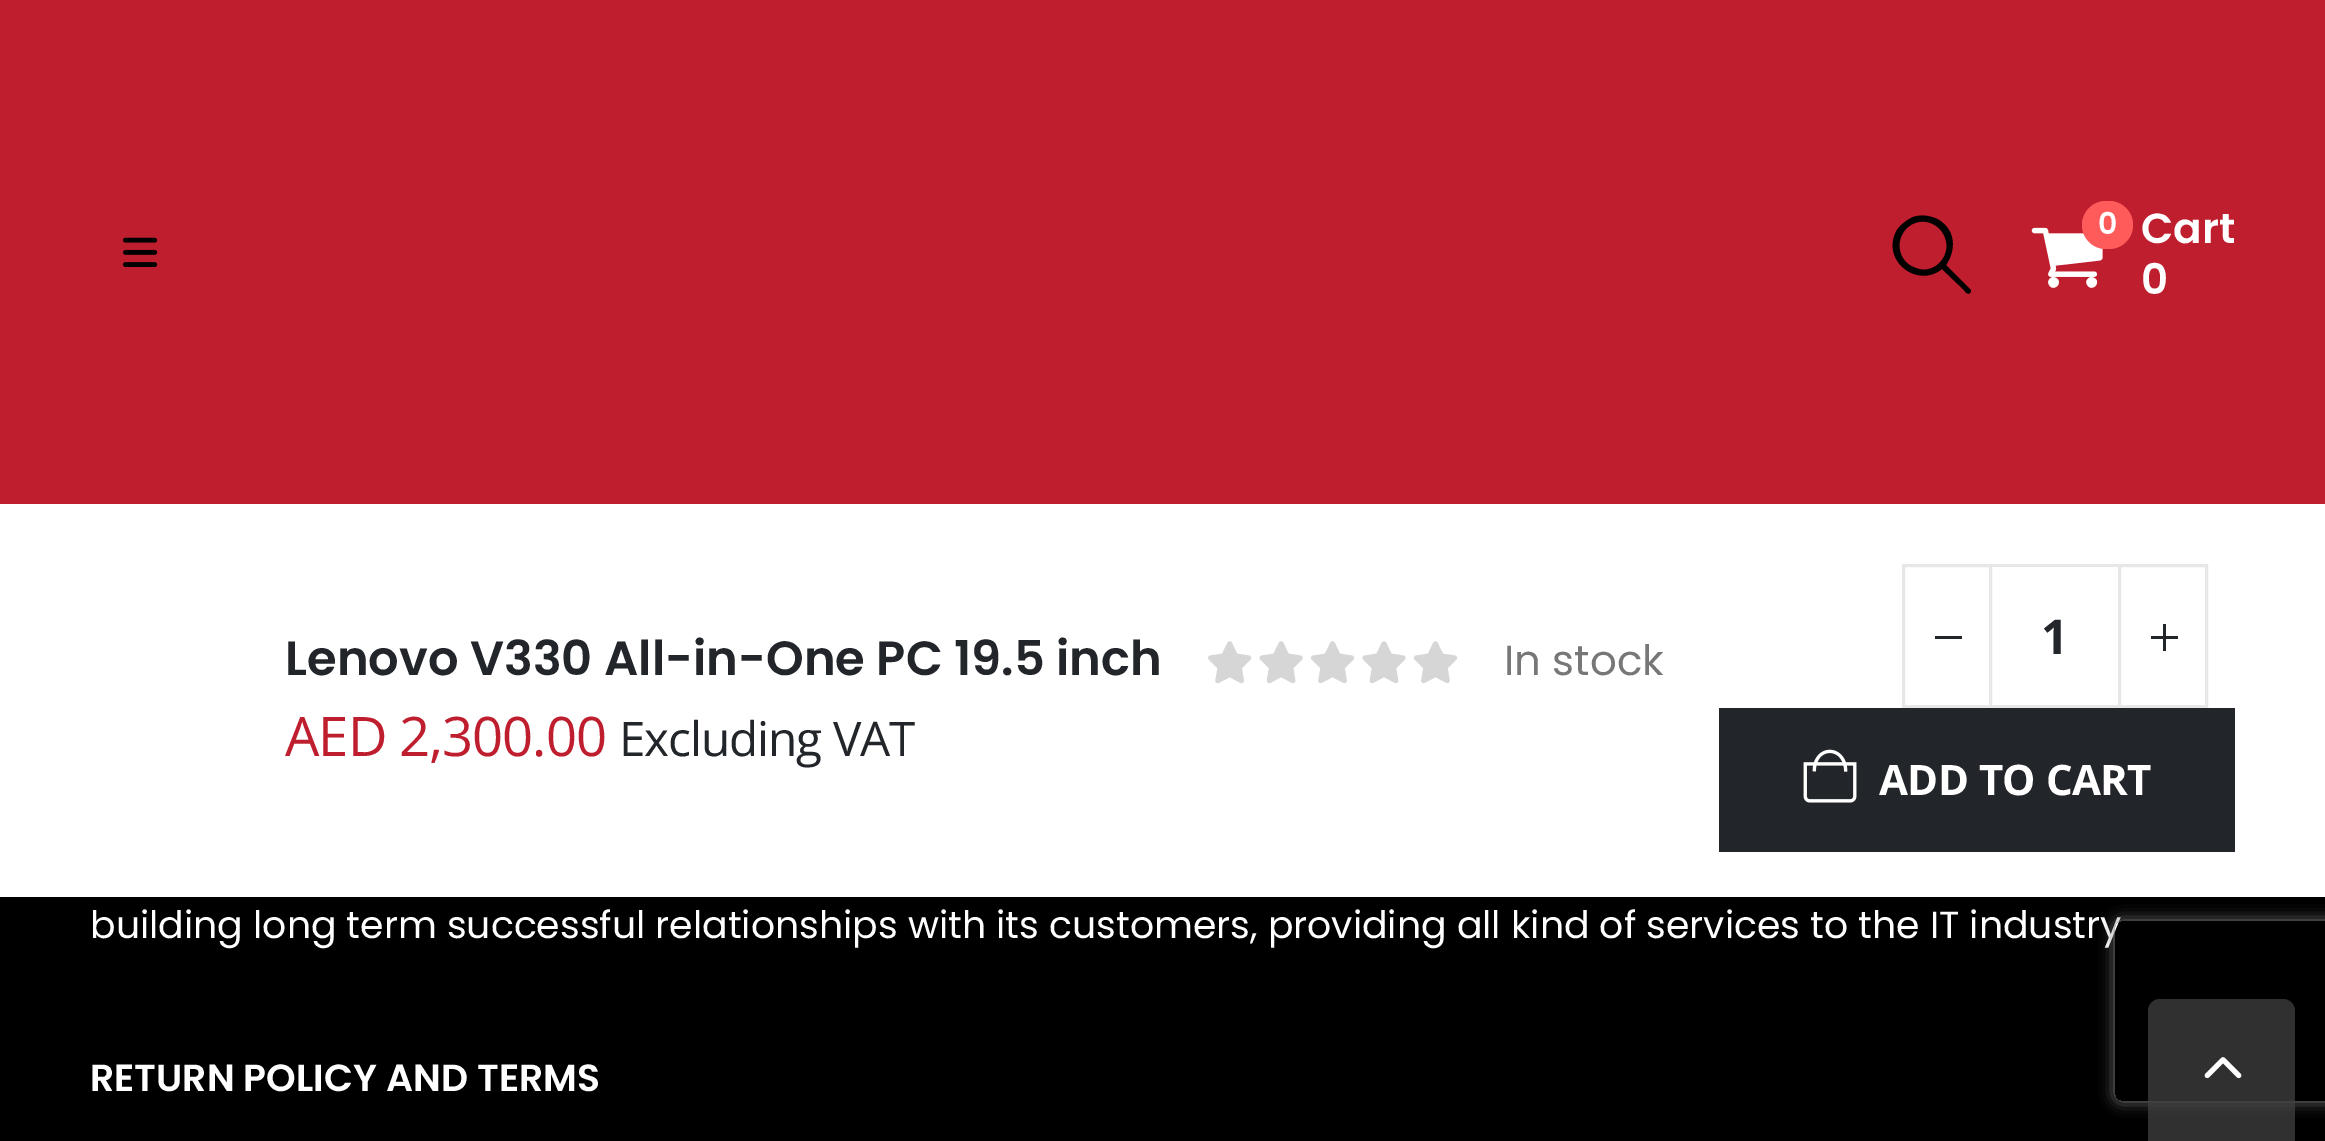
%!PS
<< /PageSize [2325 1141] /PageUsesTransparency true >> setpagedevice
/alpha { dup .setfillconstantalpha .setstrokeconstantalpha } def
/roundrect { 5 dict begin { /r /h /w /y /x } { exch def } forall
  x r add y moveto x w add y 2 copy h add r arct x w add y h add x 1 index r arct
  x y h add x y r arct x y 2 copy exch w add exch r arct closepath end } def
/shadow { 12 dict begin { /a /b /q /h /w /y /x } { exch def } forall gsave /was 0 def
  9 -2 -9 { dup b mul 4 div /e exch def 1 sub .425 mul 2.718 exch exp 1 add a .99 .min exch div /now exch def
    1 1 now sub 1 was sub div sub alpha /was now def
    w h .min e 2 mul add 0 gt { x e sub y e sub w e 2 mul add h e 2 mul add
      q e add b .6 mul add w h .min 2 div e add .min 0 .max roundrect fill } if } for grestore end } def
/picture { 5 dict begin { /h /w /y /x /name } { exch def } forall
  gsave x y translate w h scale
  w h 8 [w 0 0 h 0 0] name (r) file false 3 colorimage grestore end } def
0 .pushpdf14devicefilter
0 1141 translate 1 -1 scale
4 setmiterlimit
0 setgray
0 0 2325 1141 rectfill
0.749 0.118 0.18 setrgbcolor
0 0 2325 504 rectfill
(img1.rgb) 123 237 35 30 picture
0 setgray
newpath 1971 290 moveto 1971 291 1971 292 1970 293 curveto 1968 295 1965 292 1964 290 curveto 1942 269 lineto 1917 289 1880 260 1897 230 curveto 1901 224 1907 220 1913 217 curveto 1922 214 1932 216 1939 220 curveto 1956 231 1956 250 1946 265 curveto closepath 1916 268 moveto 1933 275 1950 258 1946 241 curveto 1942 222 1919 215 1906 229 curveto 1894 242 1899 263 1916 268 curveto closepath fill
(img2.rgb) 2031 227 72 61 picture
1 0.357 0.357 setrgbcolor
2082 201 51 48 24 roundrect fill
/Poppins-SemiBold [30 0 0 -30 0 0] selectfont
1 setgray
2098 234 moveto (0) show
/Poppins-SemiBold [42 0 0 -42 0 0] selectfont
2141 243 moveto (Cart) show
2141 294 moveto (0) show
0 504 2325 393 rectfill
/Poppins-SemiBold [48 0 0 -48 0 0] selectfont
0.133 0.145 0.161 setrgbcolor
285 675 moveto (Lenovo V330 All-in-One PC 19.5 inch) show
/OpenSans-Regular [54.5 0 0 -54.5 0 0] selectfont
0.749 0.118 0.18 setrgbcolor
285 756 moveto -1.1 0 (AED 2,300.00) ashow
/OpenSans-Regular [47.75 0 0 -47.75 0 0] selectfont
0.133 0.145 0.161 setrgbcolor
619 756 moveto -1.1 0 (Excluding VAT) ashow
(img3.rgb) 1208 641 249 43 picture
/Poppins-Regular [42 0 0 -42 0 0] selectfont
0.467 setgray
1504 675 moveto (In stock) show
0.906 setgray
1989 564 132 3 rectfill
1989 705 132 3 rectfill
3 setlinewidth
1903.5 565.5 87 141 rectstroke
0.133 0.145 0.161 setrgbcolor
1935 636 27 3 rectfill
/OpenSans-Bold [48 0 0 -48 0 0] selectfont
2041 654 moveto (1) show
0.906 setgray
2119.5 565.5 87 141 rectstroke
0.133 0.145 0.161 setrgbcolor
2151 636 27 3 rectfill
2163 624 3 27 rectfill
1719 708 516 144 rectfill
(img4.rgb) 1803 749 54 54 picture
/OpenSans-Bold [42 0 0 -42 0 0] selectfont
1 setgray
1879 795 moveto -0.6 0 (ADD TO CART) ashow
/Poppins-Regular [37.8 0 0 -37.8 0 0] selectfont
90 938 moveto (building long term successful relationships with its customers, providing all kind of services to the IT industry) show
/Poppins-SemiBold [37.8 0 0 -37.8 0 0] selectfont
90 1091 moveto (RETURN POLICY AND TERMS) show
gsave
newpath 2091 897 moveto 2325 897 lineto 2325 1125 lineto 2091 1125 lineto closepath 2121 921 moveto 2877 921 lineto 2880.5 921 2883 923.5 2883 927 curveto 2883 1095 lineto 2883 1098.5 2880.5 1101 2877 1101 curveto 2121 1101 lineto 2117.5 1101 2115 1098.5 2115 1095 curveto 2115 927 lineto 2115 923.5 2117.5 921 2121 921 curveto closepath eoclip newpath
0.502 setgray
2115 921 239 180 6 7.5 1 shadow
grestore
0.75 alpha
0.251 setgray
newpath 2160 999 moveto 2283 999 lineto 2289.5 999 2295 1004.5 2295 1011 curveto 2295 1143 lineto 2148 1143 lineto 2148 1011 lineto 2148 1004.5 2153.5 999 2160 999 curveto closepath fill
1 alpha
(img5.rgb) 2204 1057 38 22 picture
.poppdf14devicefilter showpage
